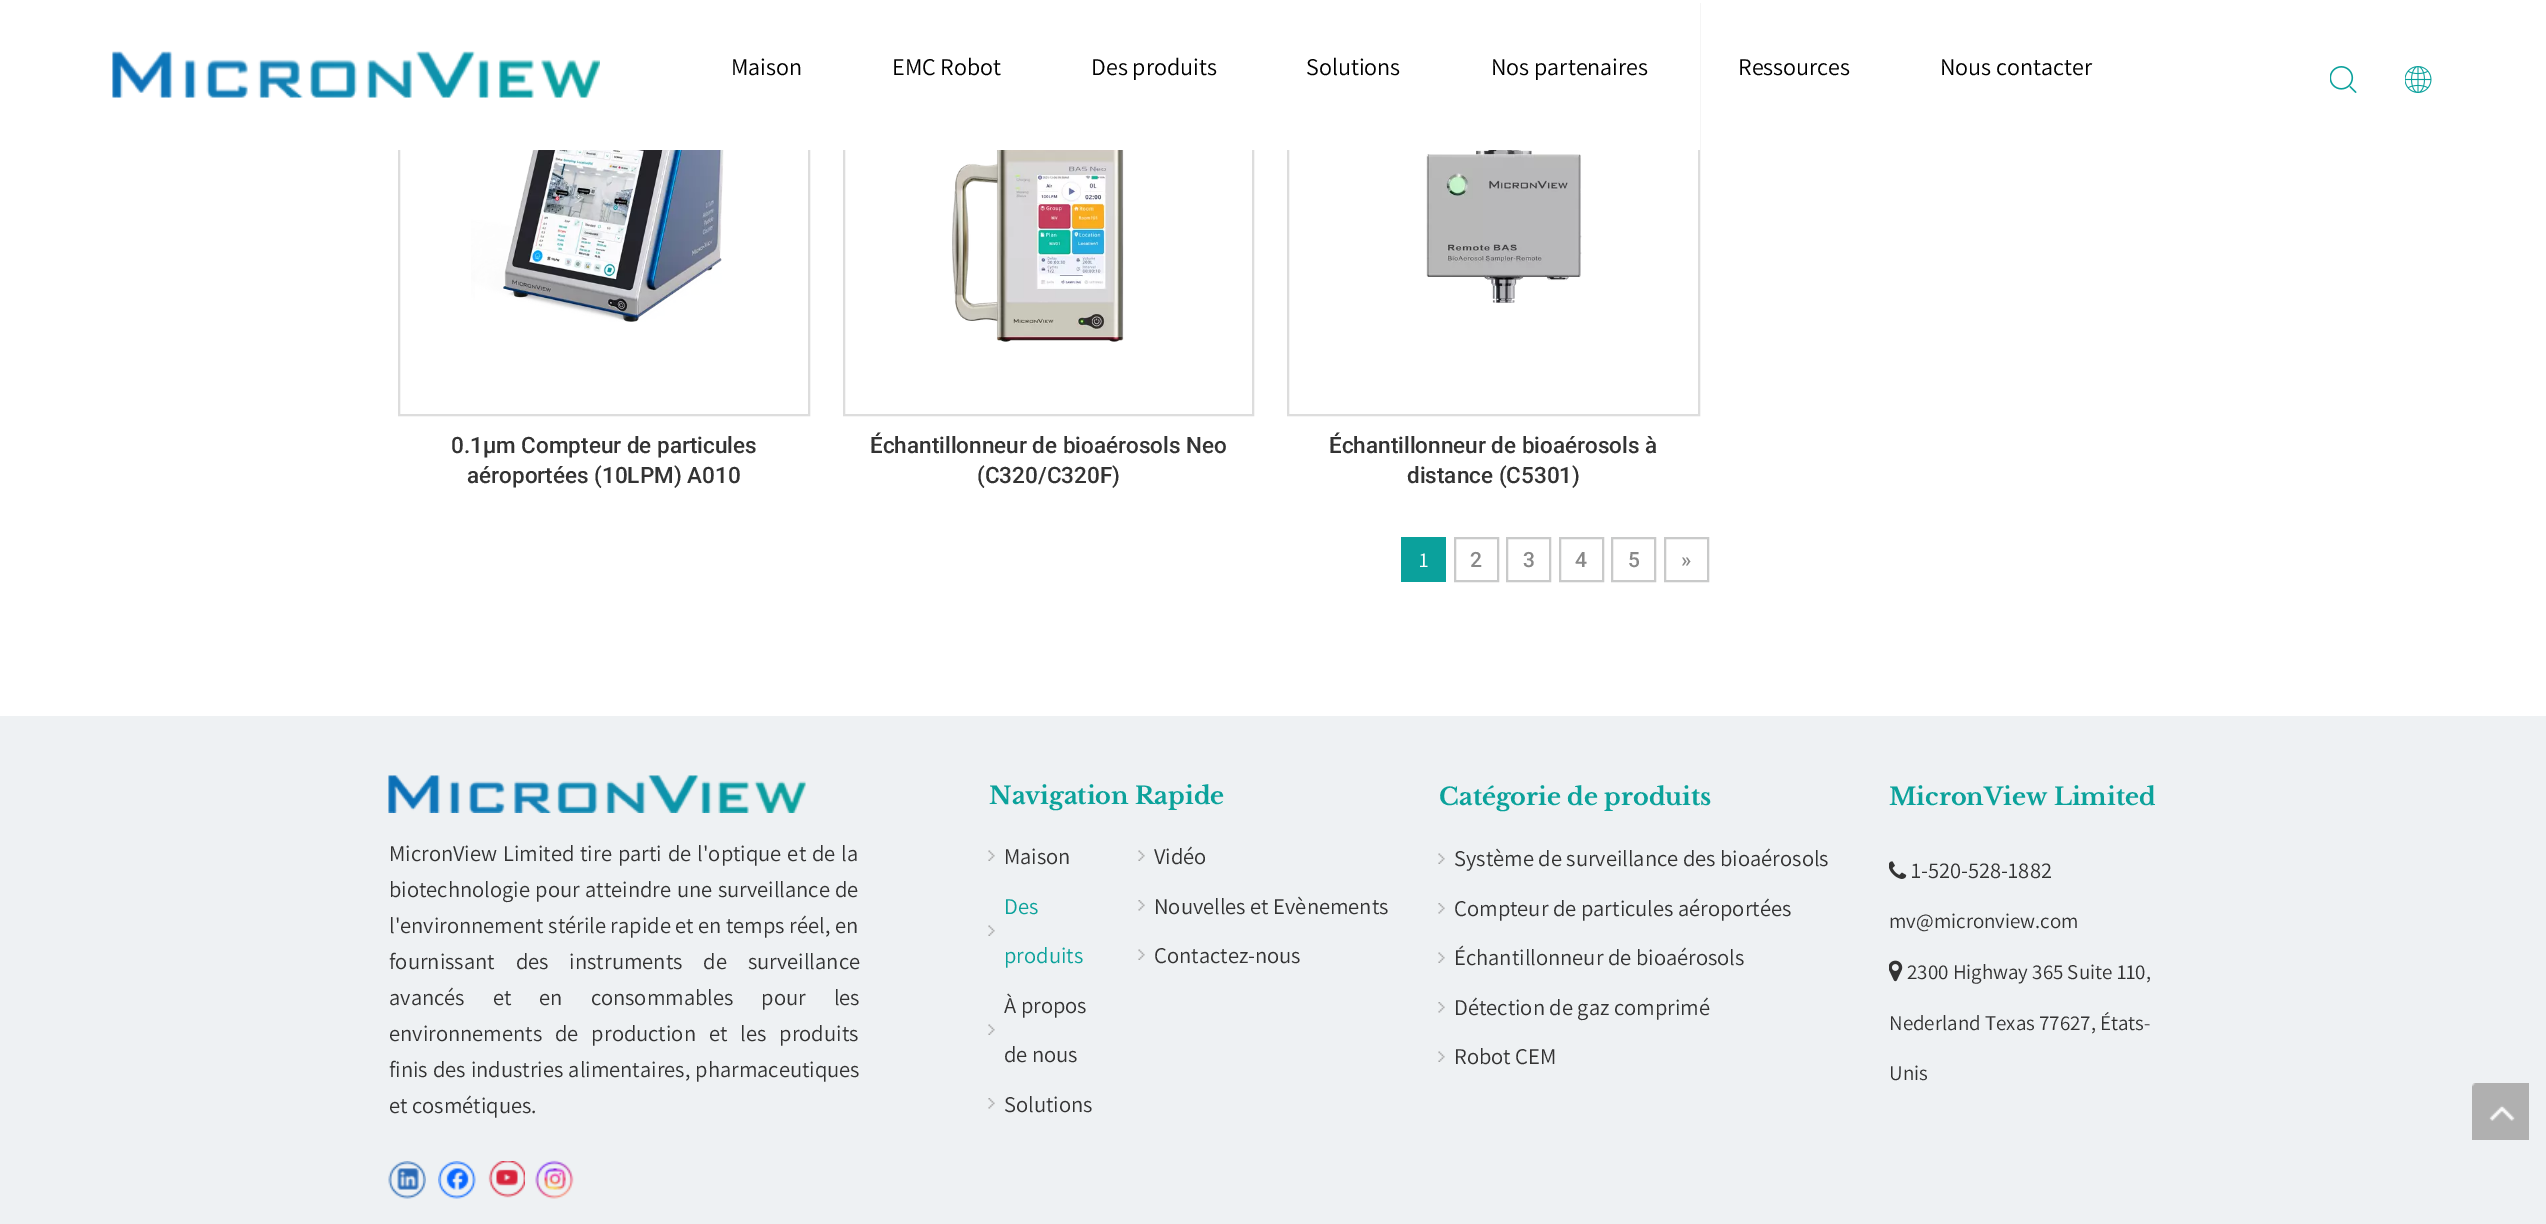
%!PS
<< /PageSize [2546 1224] >> setpagedevice
/picture { 5 dict begin { /h /w /y /x /name } { exch def } forall
  gsave x y translate w h scale
  w h 8 [w 0 0 h 0 0] name (r) file false 3 colorimage grestore end } def
0 1224 translate 1 -1 scale
4 setmiterlimit
1 setgray
0 0 2546 1224 rectfill
0.867 setgray
2 setlinewidth
399 4 410 411 rectstroke
844 4 409 411 rectstroke
1288 4 411 411 rectstroke
1 setgray
398 3 1302 147 rectfill
(img1.rgb) 112 51 488 47 picture
/Assistant-ExtraLight [24 0 0 -24 0 0] selectfont
0 setgray
731 75 moveto (Maison) show
892 75 moveto (EMC Robot) show
1091 75 moveto (Des produits) show
1306 75 moveto (Solutions) show
1491 75 moveto (Nos partenaires) show
1738 75 moveto (Ressources) show
1940 75 moveto (Nous contacter) show
(img2.rgb) 2330 66 27 27 picture
(img3.rgb) 2405 66 27 27 picture
(img4.rgb) 471 150 253 172 picture
/Roboto-Medium [22.5 0 0 -22.5 0 0] selectfont
0.2 setgray
451 453 moveto (0.1µm Compteur de particules) show
467 483 moveto (aéroportées \(10LPM\) A010) show
(img5.rgb) 952 150 172 192 picture
870 453 moveto (Échantillonneur de bioaérosols Neo) show
977 483 moveto (\(C320/C320F\)) show
(img6.rgb) 1426 150 156 153 picture
1329 453 moveto (Échantillonneur de bioaérosols à) show
1407 483 moveto (distance \(C5301\)) show
0.043 0.631 0.612 setrgbcolor
1401 537 45 45 rectfill
/Assistant-ExtraLight [21 0 0 -21 0 0] selectfont
1 setgray
1419 567 moveto (1) show
0.788 0.792 0.792 setrgbcolor
1455 538 43 43 rectstroke
/Roboto-Medium [21 0 0 -21 0 0] selectfont
0.537 setgray
1470 567 moveto (2) show
0.788 0.792 0.792 setrgbcolor
1507 538 43 43 rectstroke
0.537 setgray
1523 567 moveto (3) show
0.788 0.792 0.792 setrgbcolor
1560 538 43 43 rectstroke
0.537 setgray
1575 567 moveto (4) show
0.788 0.792 0.792 setrgbcolor
1612 538 43 43 rectstroke
0.537 setgray
1628 567 moveto (5) show
0.788 0.792 0.792 setrgbcolor
1665 538 43 43 rectstroke
0.537 setgray
1681 567 moveto (») show
0.933 0.945 0.953 setrgbcolor
0 716 2546 508 rectfill
(img7.rgb) 388 775 418 38 picture
/Assistant-ExtraLight [22.5 0 0 -22.5 0 0] selectfont
0.2 setgray
389 861 moveto 1.5 0 32 (MicronView Limited tire parti de l'optique et de la) widthshow
389 897 moveto 1 0 32 (biotechnologie pour atteindre une surveillance de) widthshow
389 933 moveto (l'environnement stérile rapide et en temps réel, en) show
389 969 moveto 16.5 0 32 (fournissant des instruments de surveillance) widthshow
389 1005 moveto 23.5 0 32 (avancés et en consommables pour les) widthshow
389 1041 moveto 8.5 0 32 (environnements de production et les produits) widthshow
389 1077 moveto 0.5 0 32 (finis des industries alimentaires, pharmaceutiques) widthshow
389 1113 moveto (et cosmétiques.) show
(img8.rgb) 388 1161 38 38 picture
(img9.rgb) 438 1161 38 38 picture
(img10.rgb) 488 1161 37 37 picture
(img11.rgb) 535 1160 39 39 picture
/LibreBaskerville-Bold [24 0 0 -24 0 0] selectfont
0.043 0.635 0.608 setrgbcolor
989 804 moveto (Navigation Rapide) show
(img12.rgb) 988 850 7 11 picture
/Assistant-ExtraLight [22.5 0 0 -22.5 0 0] selectfont
0.2 setgray
1004 864 moveto (Maison) show
(img12.rgb) 988 925 7 11 picture
0.043 0.635 0.608 setrgbcolor
1004 914 moveto (Des) show
1004 963 moveto (produits) show
(img12.rgb) 988 1024 7 11 picture
0.2 setgray
1004 1013 moveto (À propos) show
1004 1062 moveto (de nous) show
(img13.rgb) 988 1098 7 11 picture
1004 1112 moveto (Solutions) show
(img14.rgb) 1138 850 7 11 picture
1154 864 moveto (Vidéo) show
(img15.rgb) 1138 900 7 11 picture
1154 914 moveto (Nouvelles et Evènements) show
(img14.rgb) 1138 949 7 11 picture
1154 963 moveto (Contactez-nous) show
/LibreBaskerville-Bold [24 0 0 -24 0 0] selectfont
0.043 0.635 0.608 setrgbcolor
1439 805 moveto (Catégorie de produits) show
(img14.rgb) 1438 853 7 11 picture
/Assistant-ExtraLight [22.5 0 0 -22.5 0 0] selectfont
0.2 setgray
1454 866 moveto (Système de surveillance des bioaérosols) show
(img15.rgb) 1438 903 7 11 picture
1454 916 moveto (Compteur de particules aéroportées) show
(img14.rgb) 1438 952 7 11 picture
1454 965 moveto (Échantillonneur de bioaérosols) show
(img15.rgb) 1438 1002 7 11 picture
1454 1015 moveto (Détection de gaz comprimé) show
(img14.rgb) 1438 1051 7 11 picture
1454 1064 moveto (Robot CEM) show
/LibreBaskerville-Bold [24 0 0 -24 0 0] selectfont
0.043 0.635 0.608 setrgbcolor
1889 805 moveto (MicronView Limited) show
(img16.rgb) 1889 861 18 18 picture
/Assistant-ExtraLight [22.5 0 0 -22.5 0 0] selectfont
0.2 setgray
1911 878 moveto (1-520-528-1882) show
/Assistant-ExtraLight [21 0 0 -21 0 0] selectfont
1889 928 moveto (mv@micronview.com) show
(img17.rgb) 1889 960 14 22 picture
1907 979 moveto (2300 Highway 365 Suite 110,) show
1889 1030 moveto (Nederland Texas 77627, États-) show
1889 1080 moveto (Unis) show
(img18.rgb) 2472 1083 57 57 picture
showpage
